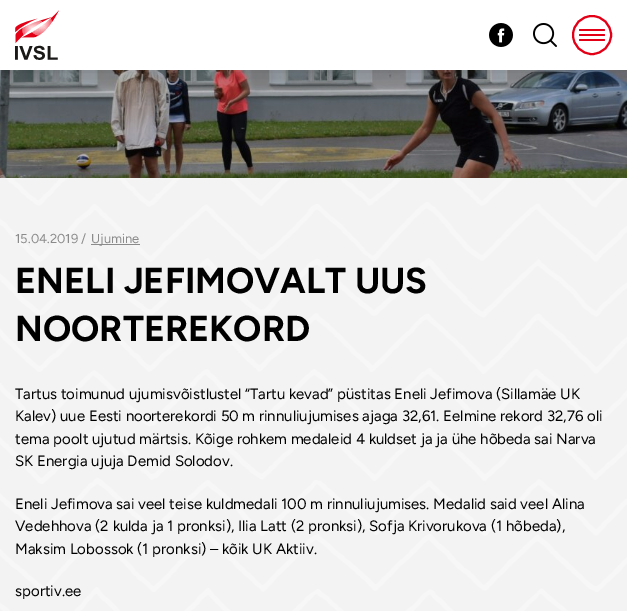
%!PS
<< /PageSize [627 611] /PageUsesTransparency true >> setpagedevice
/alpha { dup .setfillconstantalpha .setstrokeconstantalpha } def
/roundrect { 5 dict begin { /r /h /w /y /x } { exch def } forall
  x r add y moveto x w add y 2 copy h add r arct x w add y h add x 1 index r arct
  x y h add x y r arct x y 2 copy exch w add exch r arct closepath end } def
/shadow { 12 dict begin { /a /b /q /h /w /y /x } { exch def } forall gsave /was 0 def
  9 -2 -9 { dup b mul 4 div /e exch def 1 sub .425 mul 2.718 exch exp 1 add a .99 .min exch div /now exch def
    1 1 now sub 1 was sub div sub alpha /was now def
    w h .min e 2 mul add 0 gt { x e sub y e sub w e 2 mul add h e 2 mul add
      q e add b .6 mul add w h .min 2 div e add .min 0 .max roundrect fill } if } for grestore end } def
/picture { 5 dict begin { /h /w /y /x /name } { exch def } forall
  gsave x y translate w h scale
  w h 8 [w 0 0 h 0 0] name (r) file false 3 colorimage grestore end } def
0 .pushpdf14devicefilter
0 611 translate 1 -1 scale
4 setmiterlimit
0.953 setgray
0 0 627 611 rectfill
(img5.rgb) 0 70 627 108 picture
0 setgray
0 0 627 70 0 12.5 0.15 shadow
1 setgray
0 0 627 70 rectfill
(img1.rgb) 15 10 44 50 picture
(img2.rgb) 489 23 24 24 picture
(img3.rgb) 533 23 24 24 picture
0.89 0 0.086 setrgbcolor
2 setlinewidth
newpath 592 35 19 0 360 arc closepath stroke
579 29 26 2 1 roundrect fill
579 34 26 2 1 roundrect fill
579 39 26 2 1 roundrect fill
(img4.rgb) 0 178 627 433 picture
/Figtree-Regular [13 0 0 -13 0 0] selectfont
0.545 setgray
15 243 moveto (15.04.2019 /) show
91 244 49 1 rectfill
91 243 moveto (Ujumine) show
/Figtree-Bold [36 0 0 -36 0 0] selectfont
0 setgray
15 293 moveto (ENELI JEFIMOVALT UUS) show
15 341 moveto (NOORTEREKORD) show
/Figtree-Regular [15 0 0 -15 0 0] selectfont
15 399 moveto (Tartus toimunud ujumisvõistlustel “Tartu kevad” püstitas Eneli Jefimova \(Sillamäe UK) show
15 421 moveto (Kalev\) uue Eesti noorterekordi 50 m rinnuliujumises ajaga 32,61. Eelmine rekord 32,76 oli) show
15 444 moveto (tema poolt ujutud märtsis. Kõige rohkem medaleid 4 kuldset ja ja ühe hõbeda sai Narva) show
15 466 moveto (SK Energia ujuja Demid Solodov.) show
15 509 moveto (Eneli Jefimova sai veel teise kuldmedali 100 m rinnuliujumises. Medalid said veel Alina) show
15 531 moveto (Vedehhova \(2 kulda ja 1 pronksi\), Ilia Latt \(2 pronksi\), Sofja Krivorukova \(1 hõbeda\),) show
15 554 moveto (Maksim Lobossok \(1 pronksi\) – kõik UK Aktiiv.) show
15 596 moveto (sportiv.ee) show
.poppdf14devicefilter showpage
